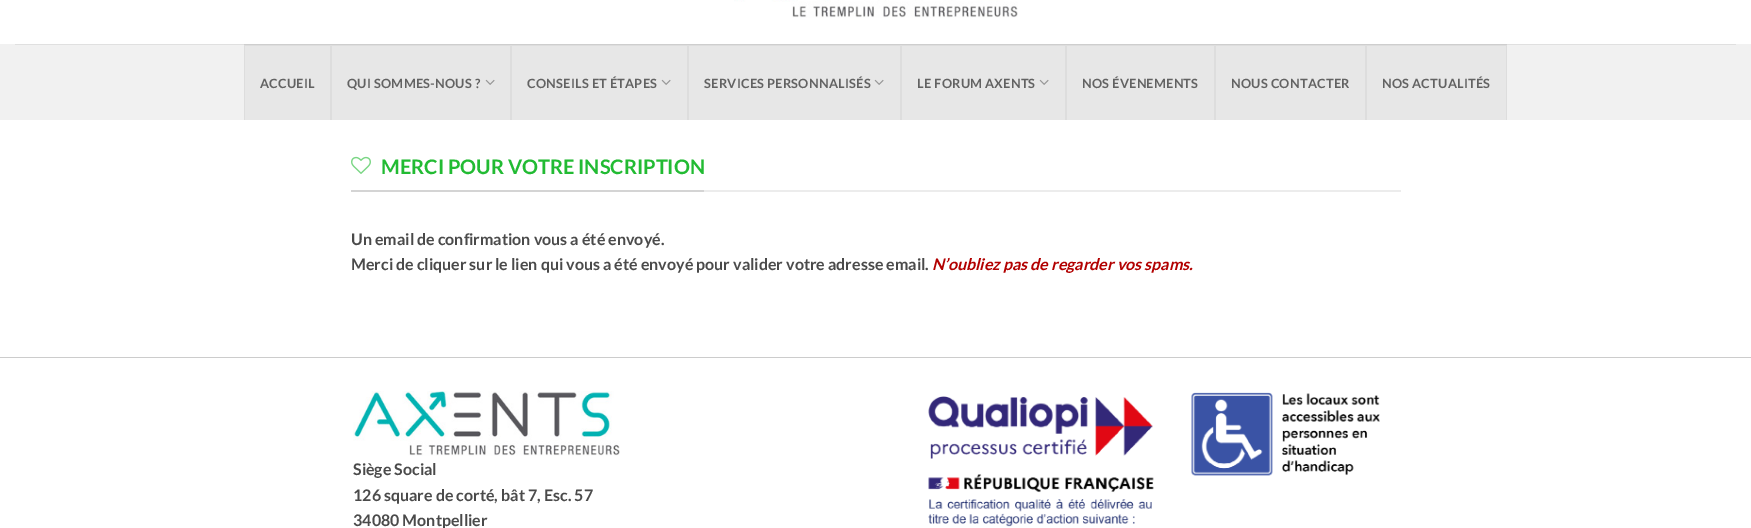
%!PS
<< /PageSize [1751 528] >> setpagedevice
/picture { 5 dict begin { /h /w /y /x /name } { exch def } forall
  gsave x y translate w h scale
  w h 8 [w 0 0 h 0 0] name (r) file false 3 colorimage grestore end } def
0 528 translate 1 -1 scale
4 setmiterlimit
1 setgray
0 0 1751 528 rectfill
(img1.rgb) 734 0 284 18 picture
0.945 setgray
0 44 1751 76 rectfill
0.878 setgray
15 44 1721 1 rectfill
0.906 setgray
245 46 85 74 rectfill
0.867 setgray
244 45 1263 1 rectfill
0.808 setgray
244 44 87 1 rectfill
0.867 setgray
330 44 1 76 rectfill
0.808 setgray
330 44 181 1 rectfill
0.867 setgray
244 44 1 76 rectfill
0.808 setgray
244 44 1 1 rectfill
/Lato-Bold [12.75 0 0 -12.75 0 0] selectfont
0.384 setgray
260 88 moveto 0.25 0 (ACCUEIL) ashow
0.906 setgray
332 46 178 74 rectfill
0.867 setgray
510 44 1 76 rectfill
0.808 setgray
510 44 178 1 rectfill
0.867 setgray
331 44 1 76 rectfill
0.808 setgray
331 44 1 1 rectfill
0.384 setgray
347 88 moveto 0.25 0 (QUI SOMMES-NOUS ?) ashow
(img2.rgb) 485 79 10 6 picture
0.906 setgray
512 46 175 74 rectfill
0.867 setgray
687 44 1 76 rectfill
0.808 setgray
687 44 214 1 rectfill
0.867 setgray
511 44 1 76 rectfill
0.808 setgray
511 44 1 1 rectfill
0.384 setgray
527 88 moveto 0.25 0 (CONSEILS ET ÉTAPES) ashow
(img2.rgb) 661 79 10 6 picture
0.906 setgray
689 46 211 74 rectfill
0.867 setgray
900 44 1 76 rectfill
0.808 setgray
900 44 166 1 rectfill
0.867 setgray
688 44 1 76 rectfill
0.808 setgray
688 44 1 1 rectfill
0.384 setgray
704 88 moveto 0.25 0 (SERVICES PERSONNALISÉS) ashow
(img2.rgb) 874 79 10 6 picture
0.906 setgray
902 46 163 74 rectfill
0.867 setgray
1065 44 1 76 rectfill
0.808 setgray
1065 44 150 1 rectfill
0.867 setgray
901 44 1 76 rectfill
0.808 setgray
901 44 1 1 rectfill
0.384 setgray
917 88 moveto 0.25 0 (LE FORUM AXENTS) ashow
(img2.rgb) 1039 79 10 6 picture
0.906 setgray
1067 46 147 74 rectfill
0.867 setgray
1214 44 1 76 rectfill
0.808 setgray
1214 44 152 1 rectfill
0.867 setgray
1066 44 1 76 rectfill
0.808 setgray
1066 44 1 1 rectfill
0.384 setgray
1082 88 moveto 0.25 0 (NOS ÉVENEMENTS) ashow
0.906 setgray
1216 46 149 74 rectfill
0.867 setgray
1365 44 1 76 rectfill
0.808 setgray
1365 44 142 1 rectfill
0.867 setgray
1215 44 1 76 rectfill
0.808 setgray
1215 44 1 1 rectfill
0.384 setgray
1231 88 moveto 0.25 0 (NOUS CONTACTER) ashow
0.906 setgray
1367 46 139 74 rectfill
0.867 setgray
1506 44 1 76 rectfill
0.808 setgray
1506 44 1 1 rectfill
0.867 setgray
1366 44 1 76 rectfill
0.808 setgray
1366 44 1 1 rectfill
0.384 setgray
1382 88 moveto 0.25 0 (NOS ACTUALITÉS) ashow
0.925 setgray
704 190 697 2 rectfill
0.831 setgray
351 190 353 2 rectfill
(img3.rgb) 351 156 20 18 picture
/Lato-Bold [20 0 0 -20 0 0] selectfont
0.133 0.733 0.2 setrgbcolor
381 174 moveto (MERCI POUR VOTRE INSCRIPTION) show
/Lato-Bold [16 0 0 -16 0 0] selectfont
0.29 setgray
351 245 moveto (Un email de confirmation vous a été envoyé.) show
351 270 moveto (Merci de cliquer sur le lien qui vous a été envoyé pour valider votre adresse email.) show
/Lato-BoldItalic [16 0 0 -16 0 0] selectfont
0.698 0 0 setrgbcolor
932 270 moveto (N’oubliez pas de regarder vos spams.) show
0.8 setgray
0 357 1751 1 rectfill
(img4.rgb) 353 391 267 65 picture
/Lato-Bold [16 0 0 -16 0 0] selectfont
0.29 setgray
353 475 moveto (Siège Social) show
353 501 moveto (126 square de corté, bât 7, Esc. 57) show
353 526 moveto (34080 Montpellier) show
(img5.rgb) 928 392 452 135 picture
showpage
